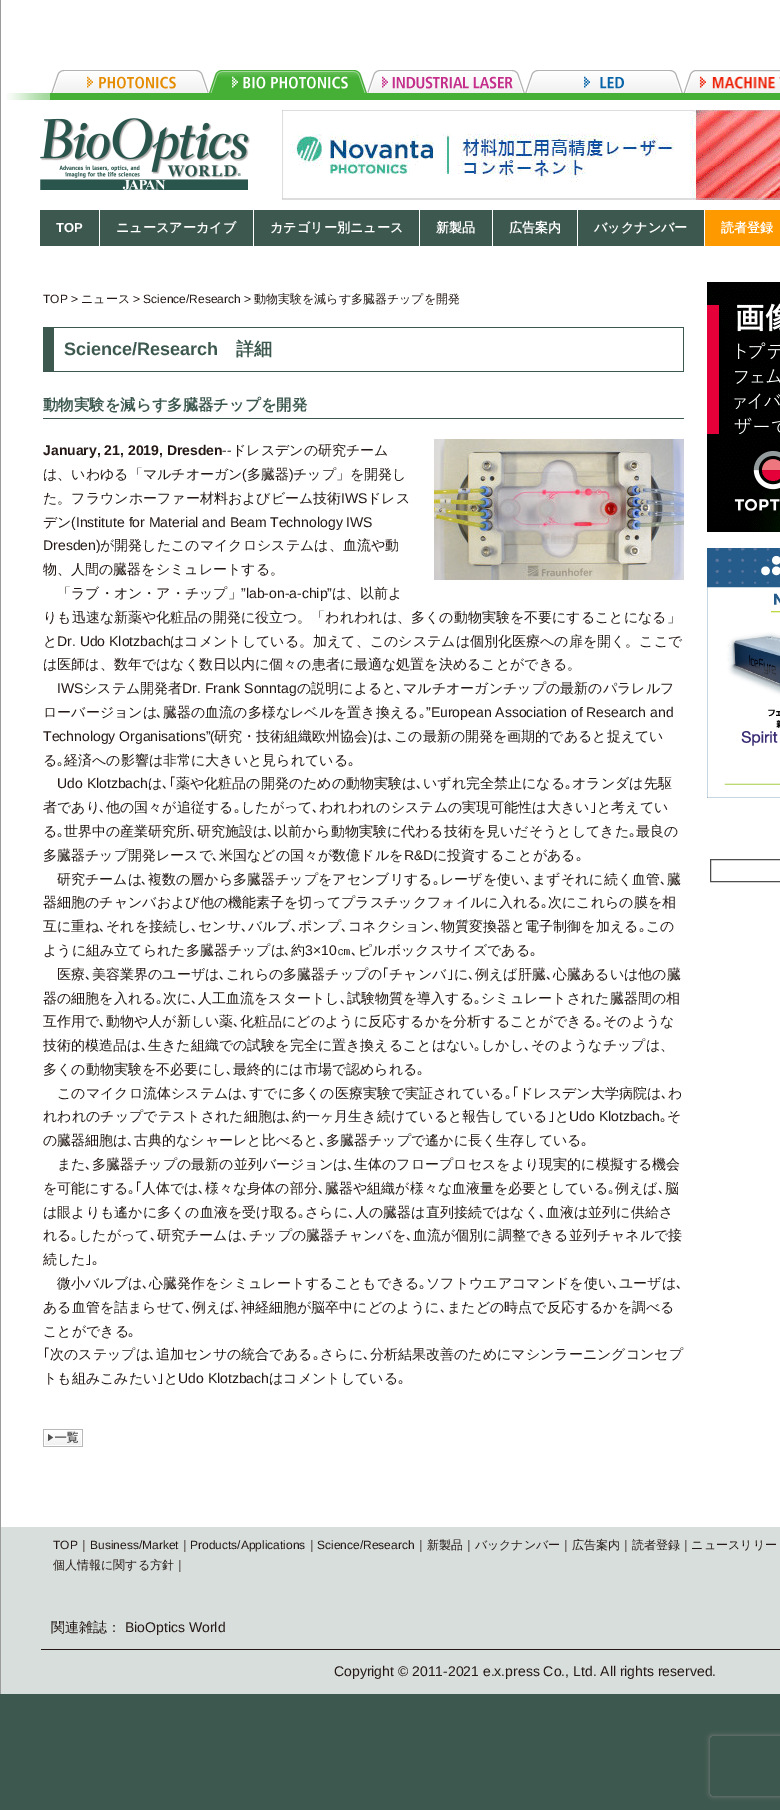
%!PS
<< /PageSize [780 1810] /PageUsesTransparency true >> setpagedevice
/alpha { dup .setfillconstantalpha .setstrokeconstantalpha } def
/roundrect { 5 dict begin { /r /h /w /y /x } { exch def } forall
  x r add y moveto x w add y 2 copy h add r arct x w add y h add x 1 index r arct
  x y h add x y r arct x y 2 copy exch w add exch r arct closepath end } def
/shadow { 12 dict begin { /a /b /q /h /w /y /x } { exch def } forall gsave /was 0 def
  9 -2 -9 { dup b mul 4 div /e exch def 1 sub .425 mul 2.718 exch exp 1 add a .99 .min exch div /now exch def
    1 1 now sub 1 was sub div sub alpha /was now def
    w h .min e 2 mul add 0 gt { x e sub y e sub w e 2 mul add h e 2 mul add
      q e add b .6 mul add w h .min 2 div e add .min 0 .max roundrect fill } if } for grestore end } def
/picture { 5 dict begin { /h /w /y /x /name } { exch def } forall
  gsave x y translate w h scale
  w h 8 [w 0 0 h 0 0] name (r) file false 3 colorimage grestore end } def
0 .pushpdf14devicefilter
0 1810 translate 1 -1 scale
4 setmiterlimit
0.239 0.345 0.306 setrgbcolor
0 0 780 1810 rectfill
1 setgray
1 0 779 1527 rectfill
0.608 setgray
0 0 1 1694 rectfill
(img1.rgb) 6 93 774 7 picture
(img2.rgb) 51 70 158 23 picture
(img3.rgb) 209 70 158 23 picture
(img4.rgb) 367 70 158 23 picture
(img5.rgb) 525 70 158 23 picture
(img6.rgb) 683 70 97 23 picture
(img7.rgb) 40 118 210 72 picture
(img8.rgb) 282 110 498 90 picture
0.239 0.345 0.306 setrgbcolor
40 210 664 36 rectfill
1 setgray
99 210 1 36 rectfill
/LiberationSans-Bold [13 0 0 -13 0 0] selectfont
56 232 moveto 0.1 0 (TOP) ashow
253 210 1 36 rectfill
/WenQuanYiZenHei-Bold [13 0 0 -13 0 0] selectfont
116 232 moveto 0.1 0 (ニュースアーカイブ) ashow
419 210 1 36 rectfill
270 232 moveto 0.1 0 (カテゴリー別ニュース) ashow
492 210 1 36 rectfill
436 232 moveto 0.1 0 (新製品) ashow
577 210 1 36 rectfill
509 232 moveto 0.1 0 (広告案内) ashow
594 232 moveto 0.1 0 (バックナンバー) ashow
1 0.6 0 setrgbcolor
705 210 75 36 rectfill
1 setgray
721 232 moveto 0.1 0 (読者登録) ashow
/LiberationSans-Regular [12 0 0 -12 0 0] selectfont
0.137 0.094 0.082 setrgbcolor
43 303 moveto (TOP >) show
/WenQuanYiZenHei-Medium [12 0 0 -12 0 0] selectfont
81 303 moveto (ニュース) show
/LiberationSans-Regular [12 0 0 -12 0 0] selectfont
133 303 moveto (> Science/Research >) show
/WenQuanYiZenHei-Medium [12 0 0 -12 0 0] selectfont
254 303 moveto (動物実験を減らす多臓器チップを開発) show
0.239 0.345 0.306 setrgbcolor
54 327 630 1 rectfill
683 327 1 45 rectfill
54 371 630 1 rectfill
43 327 11 45 rectfill
/LiberationSans-Bold [18 0 0 -18 0 0] selectfont
64 355 moveto (Science/Research) show
/WenQuanYiZenHei-Bold [18 0 0 -18 0 0] selectfont
236 355 moveto (詳細) show
43 418 641 1 rectfill
/WenQuanYiZenHei-Bold [15.4 0 0 -15.4 0 0] selectfont
43 410 moveto (動物実験を減らす多臓器チップを開発) show
(img9.rgb) 434 439 250 141 picture
/LiberationSans-Bold [14 0 0 -14 0 0] selectfont
0.137 0.094 0.082 setrgbcolor
43 455 moveto (January, 21, 2019, Dresden) show
/LiberationSans-Regular [14 0 0 -14 0 0] selectfont
222 455 moveto (--) show
/WenQuanYiZenHei-Medium [14 0 0 -14 0 0] selectfont
232 455 moveto (ドレスデンの研究チーム) show
43 479 moveto (は、いわゆる「マルチオーガン) show
/LiberationSans-Regular [14 0 0 -14 0 0] selectfont
242 479 moveto (\() show
/WenQuanYiZenHei-Medium [14 0 0 -14 0 0] selectfont
247 479 moveto (多臓器) show
/LiberationSans-Regular [14 0 0 -14 0 0] selectfont
289 479 moveto (\)) show
/WenQuanYiZenHei-Medium [14 0 0 -14 0 0] selectfont
293 479 moveto (チップ」を開発し) show
43 503 moveto (た。フラウンホーファー材料およびビーム技術) show
/LiberationSans-Regular [14 0 0 -14 0 0] selectfont
341 503 moveto (IWS) show
/WenQuanYiZenHei-Medium [14 0 0 -14 0 0] selectfont
367 503 moveto (ドレス) show
43 527 moveto (デン) show
/LiberationSans-Regular [14 0 0 -14 0 0] selectfont
71 527 moveto (\(Institute for Material and Beam Technology IWS) show
43 550 moveto (Dresden\)) show
/WenQuanYiZenHei-Medium [14 0 0 -14 0 0] selectfont
100 550 moveto (が開発したこのマイクロシステムは、血流や動) show
43 574 moveto (物、人間の臓器をシミュレートする。) show
57 598 moveto (「ラブ・オン・ア・チップ」) show
/LiberationSans-Regular [14 0 0 -14 0 0] selectfont
241 598 moveto (”lab-on-a-chip”) show
/WenQuanYiZenHei-Medium [14 0 0 -14 0 0] selectfont
332 598 moveto (は、以前よ) show
43 622 moveto (りも迅速な新薬や化粧品の開発に役立つ。「われわれは、多くの動物実験を不要にすることになる」) show
43 646 moveto (と) show
/LiberationSans-Regular [14 0 0 -14 0 0] selectfont
57 646 moveto (Dr. Udo Klotzbach) show
/WenQuanYiZenHei-Medium [14 0 0 -14 0 0] selectfont
170 646 moveto (はコメントしている。加えて、このシステムは個別化医療への扉を開く。ここで) show
43 669 moveto (は医師は、数年ではなく数日以内に個々の患者に最適な処置を決めることができる。) show
/LiberationSans-Regular [14 0 0 -14 0 0] selectfont
57 693 moveto (IWS) show
/WenQuanYiZenHei-Medium [14 0 0 -14 0 0] selectfont
83 693 moveto (システム開発者) show
/LiberationSans-Regular [14 0 0 -14 0 0] selectfont
182 693 moveto (Dr. Frank Sonntag) show
/WenQuanYiZenHei-Medium [14 0 0 -14 0 0] selectfont
297 693 moveto (の説明によると) show
/IPAPGothic-Regular [14 0 0 -14 0 0] selectfont
396 693 moveto (､) show
/WenQuanYiZenHei-Medium [14 0 0 -14 0 0] selectfont
403 693 moveto (マルチオーガンチップの最新のパラレルフ) show
43 717 moveto (ローバージョンは) show
/IPAPGothic-Regular [14 0 0 -14 0 0] selectfont
156 717 moveto (､) show
/WenQuanYiZenHei-Medium [14 0 0 -14 0 0] selectfont
163 717 moveto (臓器の血流の多様なレベルを置き換える) show
/IPAPGothic-Regular [14 0 0 -14 0 0] selectfont
419 717 moveto (｡) show
/LiberationSans-Regular [14 0 0 -14 0 0] selectfont
426 717 moveto (”European Association of Research and) show
43 741 moveto (Technology Organisations”\() show
/WenQuanYiZenHei-Medium [14 0 0 -14 0 0] selectfont
214 741 moveto (研究・技術組織欧州協会) show
/LiberationSans-Regular [14 0 0 -14 0 0] selectfont
368 741 moveto (\)) show
/WenQuanYiZenHei-Medium [14 0 0 -14 0 0] selectfont
373 741 moveto (は) show
/IPAPGothic-Regular [14 0 0 -14 0 0] selectfont
387 741 moveto (､) show
/WenQuanYiZenHei-Medium [14 0 0 -14 0 0] selectfont
394 741 moveto (この最新の開発を画期的であると捉えてい) show
43 765 moveto (る) show
/IPAPGothic-Regular [14 0 0 -14 0 0] selectfont
57 765 moveto (｡) show
/WenQuanYiZenHei-Medium [14 0 0 -14 0 0] selectfont
64 765 moveto (経済への影響は非常に大きいと見られている) show
/IPAPGothic-Regular [14 0 0 -14 0 0] selectfont
348 765 moveto (｡) show
/LiberationSans-Regular [14 0 0 -14 0 0] selectfont
57 788 moveto (Udo Klotzbach) show
/WenQuanYiZenHei-Medium [14 0 0 -14 0 0] selectfont
148 788 moveto (は) show
/IPAPGothic-Regular [14 0 0 -14 0 0] selectfont
162 788 moveto (､｢) show
/WenQuanYiZenHei-Medium [14 0 0 -14 0 0] selectfont
176 788 moveto (薬や化粧品の開発のための動物実験は) show
/IPAPGothic-Regular [14 0 0 -14 0 0] selectfont
416 788 moveto (､) show
/WenQuanYiZenHei-Medium [14 0 0 -14 0 0] selectfont
423 788 moveto (いずれ完全禁止になる) show
/IPAPGothic-Regular [14 0 0 -14 0 0] selectfont
565 788 moveto (｡) show
/WenQuanYiZenHei-Medium [14 0 0 -14 0 0] selectfont
572 788 moveto (オランダは先駆) show
43 812 moveto (者であり) show
/IPAPGothic-Regular [14 0 0 -14 0 0] selectfont
99 812 moveto (､) show
/WenQuanYiZenHei-Medium [14 0 0 -14 0 0] selectfont
106 812 moveto (他の国々が追従する) show
/IPAPGothic-Regular [14 0 0 -14 0 0] selectfont
234 812 moveto (｡) show
/WenQuanYiZenHei-Medium [14 0 0 -14 0 0] selectfont
241 812 moveto (したがって) show
/IPAPGothic-Regular [14 0 0 -14 0 0] selectfont
312 812 moveto (､) show
/WenQuanYiZenHei-Medium [14 0 0 -14 0 0] selectfont
319 812 moveto (われわれのシステムの実現可能性は大きい) show
/IPAPGothic-Regular [14 0 0 -14 0 0] selectfont
590 812 moveto (｣) show
/WenQuanYiZenHei-Medium [14 0 0 -14 0 0] selectfont
597 812 moveto (と考えてい) show
43 836 moveto (る) show
/IPAPGothic-Regular [14 0 0 -14 0 0] selectfont
57 836 moveto (｡) show
/WenQuanYiZenHei-Medium [14 0 0 -14 0 0] selectfont
64 836 moveto (世界中の産業研究所) show
/IPAPGothic-Regular [14 0 0 -14 0 0] selectfont
190 836 moveto (､) show
/WenQuanYiZenHei-Medium [14 0 0 -14 0 0] selectfont
197 836 moveto (研究施設は) show
/IPAPGothic-Regular [14 0 0 -14 0 0] selectfont
267 836 moveto (､) show
/WenQuanYiZenHei-Medium [14 0 0 -14 0 0] selectfont
274 836 moveto (以前から動物実験に代わる技術を見いだそうとしてきた) show
/IPAPGothic-Regular [14 0 0 -14 0 0] selectfont
629 836 moveto (｡) show
/WenQuanYiZenHei-Medium [14 0 0 -14 0 0] selectfont
636 836 moveto (最良の) show
43 860 moveto (多臓器チップ開発レースで) show
/IPAPGothic-Regular [14 0 0 -14 0 0] selectfont
212 860 moveto (､) show
/WenQuanYiZenHei-Medium [14 0 0 -14 0 0] selectfont
219 860 moveto (米国などの国々が数億ドルを) show
/LiberationSans-Regular [14 0 0 -14 0 0] selectfont
404 860 moveto (R&D) show
/WenQuanYiZenHei-Medium [14 0 0 -14 0 0] selectfont
433 860 moveto (に投資することがある) show
/IPAPGothic-Regular [14 0 0 -14 0 0] selectfont
576 860 moveto (｡) show
/WenQuanYiZenHei-Medium [14 0 0 -14 0 0] selectfont
57 884 moveto (研究チームは) show
/IPAPGothic-Regular [14 0 0 -14 0 0] selectfont
141 884 moveto (､) show
/WenQuanYiZenHei-Medium [14 0 0 -14 0 0] selectfont
148 884 moveto (複数の層から多臓器チップをアセンブリする) show
/IPAPGothic-Regular [14 0 0 -14 0 0] selectfont
433 884 moveto (｡) show
/WenQuanYiZenHei-Medium [14 0 0 -14 0 0] selectfont
440 884 moveto (レーザを使い) show
/IPAPGothic-Regular [14 0 0 -14 0 0] selectfont
525 884 moveto (､) show
/WenQuanYiZenHei-Medium [14 0 0 -14 0 0] selectfont
532 884 moveto (まずそれに続く血管) show
/IPAPGothic-Regular [14 0 0 -14 0 0] selectfont
660 884 moveto (､) show
/WenQuanYiZenHei-Medium [14 0 0 -14 0 0] selectfont
667 884 moveto (臓) show
43 907 moveto (器細胞のチャンバおよび他の機能素子を切ってプラスチックフォイルに入れる) show
/IPAPGothic-Regular [14 0 0 -14 0 0] selectfont
541 907 moveto (｡) show
/WenQuanYiZenHei-Medium [14 0 0 -14 0 0] selectfont
548 907 moveto (次にこれらの膜を相) show
43 931 moveto (互に重ね) show
/IPAPGothic-Regular [14 0 0 -14 0 0] selectfont
99 931 moveto (､) show
/WenQuanYiZenHei-Medium [14 0 0 -14 0 0] selectfont
106 931 moveto (それを接続し) show
/IPAPGothic-Regular [14 0 0 -14 0 0] selectfont
191 931 moveto (､) show
/WenQuanYiZenHei-Medium [14 0 0 -14 0 0] selectfont
198 931 moveto (センサ) show
/IPAPGothic-Regular [14 0 0 -14 0 0] selectfont
241 931 moveto (､) show
/WenQuanYiZenHei-Medium [14 0 0 -14 0 0] selectfont
248 931 moveto (バルブ) show
/IPAPGothic-Regular [14 0 0 -14 0 0] selectfont
291 931 moveto (､) show
/WenQuanYiZenHei-Medium [14 0 0 -14 0 0] selectfont
298 931 moveto (ポンプ) show
/IPAPGothic-Regular [14 0 0 -14 0 0] selectfont
341 931 moveto (､) show
/WenQuanYiZenHei-Medium [14 0 0 -14 0 0] selectfont
348 931 moveto (コネクション) show
/IPAPGothic-Regular [14 0 0 -14 0 0] selectfont
434 931 moveto (､) show
/WenQuanYiZenHei-Medium [14 0 0 -14 0 0] selectfont
441 931 moveto (物質変換器と電子制御を加える) show
/IPAPGothic-Regular [14 0 0 -14 0 0] selectfont
639 931 moveto (｡) show
/WenQuanYiZenHei-Medium [14 0 0 -14 0 0] selectfont
646 931 moveto (この) show
43 955 moveto (ように組み立てられた多臓器チップは) show
/IPAPGothic-Regular [14 0 0 -14 0 0] selectfont
284 955 moveto (､) show
/WenQuanYiZenHei-Medium [14 0 0 -14 0 0] selectfont
291 955 moveto (約) show
/LiberationSans-Regular [14 0 0 -14 0 0] selectfont
305 955 moveto (3×10) show
/WenQuanYiZenHei-Medium [14 0 0 -14 0 0] selectfont
337 955 moveto (㎝) show
/IPAPGothic-Regular [14 0 0 -14 0 0] selectfont
351 955 moveto (､) show
/WenQuanYiZenHei-Medium [14 0 0 -14 0 0] selectfont
358 955 moveto (ピルボックスサイズである) show
/IPAPGothic-Regular [14 0 0 -14 0 0] selectfont
530 955 moveto (｡) show
/WenQuanYiZenHei-Medium [14 0 0 -14 0 0] selectfont
57 979 moveto (医療) show
/IPAPGothic-Regular [14 0 0 -14 0 0] selectfont
85 979 moveto (､) show
/WenQuanYiZenHei-Medium [14 0 0 -14 0 0] selectfont
92 979 moveto (美容業界のユーザは) show
/IPAPGothic-Regular [14 0 0 -14 0 0] selectfont
219 979 moveto (､) show
/WenQuanYiZenHei-Medium [14 0 0 -14 0 0] selectfont
226 979 moveto (これらの多臓器チップの) show
/IPAPGothic-Regular [14 0 0 -14 0 0] selectfont
382 979 moveto (｢) show
/WenQuanYiZenHei-Medium [14 0 0 -14 0 0] selectfont
389 979 moveto (チャンバ) show
/IPAPGothic-Regular [14 0 0 -14 0 0] selectfont
447 979 moveto (｣) show
/WenQuanYiZenHei-Medium [14 0 0 -14 0 0] selectfont
454 979 moveto (に) show
/IPAPGothic-Regular [14 0 0 -14 0 0] selectfont
468 979 moveto (､) show
/WenQuanYiZenHei-Medium [14 0 0 -14 0 0] selectfont
475 979 moveto (例えば肝臓) show
/IPAPGothic-Regular [14 0 0 -14 0 0] selectfont
546 979 moveto (､) show
/WenQuanYiZenHei-Medium [14 0 0 -14 0 0] selectfont
553 979 moveto (心臓あるいは他の臓) show
43 1003 moveto (器の細胞を入れる) show
/IPAPGothic-Regular [14 0 0 -14 0 0] selectfont
156 1003 moveto (｡) show
/WenQuanYiZenHei-Medium [14 0 0 -14 0 0] selectfont
163 1003 moveto (次に) show
/IPAPGothic-Regular [14 0 0 -14 0 0] selectfont
191 1003 moveto (､) show
/WenQuanYiZenHei-Medium [14 0 0 -14 0 0] selectfont
198 1003 moveto (人工血流をスタートし) show
/IPAPGothic-Regular [14 0 0 -14 0 0] selectfont
340 1003 moveto (､) show
/WenQuanYiZenHei-Medium [14 0 0 -14 0 0] selectfont
347 1003 moveto (試験物質を導入する) show
/IPAPGothic-Regular [14 0 0 -14 0 0] selectfont
474 1003 moveto (｡) show
/WenQuanYiZenHei-Medium [14 0 0 -14 0 0] selectfont
481 1003 moveto (シミュレートされた臓器間の相) show
43 1026 moveto (互作用で) show
/IPAPGothic-Regular [14 0 0 -14 0 0] selectfont
99 1026 moveto (､) show
/WenQuanYiZenHei-Medium [14 0 0 -14 0 0] selectfont
106 1026 moveto (動物や人が新しい薬) show
/IPAPGothic-Regular [14 0 0 -14 0 0] selectfont
233 1026 moveto (､) show
/WenQuanYiZenHei-Medium [14 0 0 -14 0 0] selectfont
240 1026 moveto (化粧品にどのように反応するかを分析することができる) show
/IPAPGothic-Regular [14 0 0 -14 0 0] selectfont
596 1026 moveto (｡) show
/WenQuanYiZenHei-Medium [14 0 0 -14 0 0] selectfont
603 1026 moveto (そのような) show
43 1050 moveto (技術的模造品は) show
/IPAPGothic-Regular [14 0 0 -14 0 0] selectfont
141 1050 moveto (､) show
/WenQuanYiZenHei-Medium [14 0 0 -14 0 0] selectfont
148 1050 moveto (生きた組織での試験を完全に置き換えることはない) show
/IPAPGothic-Regular [14 0 0 -14 0 0] selectfont
474 1050 moveto (｡) show
/WenQuanYiZenHei-Medium [14 0 0 -14 0 0] selectfont
481 1050 moveto (しかし) show
/IPAPGothic-Regular [14 0 0 -14 0 0] selectfont
524 1050 moveto (､) show
/WenQuanYiZenHei-Medium [14 0 0 -14 0 0] selectfont
531 1050 moveto (そのようなチップは、) show
43 1074 moveto (多くの動物実験を不必要にし) show
/IPAPGothic-Regular [14 0 0 -14 0 0] selectfont
226 1074 moveto (､) show
/WenQuanYiZenHei-Medium [14 0 0 -14 0 0] selectfont
233 1074 moveto (最終的には市場で認められる) show
/IPAPGothic-Regular [14 0 0 -14 0 0] selectfont
417 1074 moveto (｡) show
/WenQuanYiZenHei-Medium [14 0 0 -14 0 0] selectfont
57 1098 moveto (このマイクロ流体システムは) show
/IPAPGothic-Regular [14 0 0 -14 0 0] selectfont
242 1098 moveto (､) show
/WenQuanYiZenHei-Medium [14 0 0 -14 0 0] selectfont
249 1098 moveto (すでに多くの医療実験で実証されている) show
/IPAPGothic-Regular [14 0 0 -14 0 0] selectfont
505 1098 moveto (｡｢) show
/WenQuanYiZenHei-Medium [14 0 0 -14 0 0] selectfont
519 1098 moveto (ドレスデン大学病院は) show
/IPAPGothic-Regular [14 0 0 -14 0 0] selectfont
661 1098 moveto (､) show
/WenQuanYiZenHei-Medium [14 0 0 -14 0 0] selectfont
668 1098 moveto (わ) show
43 1121 moveto (れわれのチップでテストされた細胞は) show
/IPAPGothic-Regular [14 0 0 -14 0 0] selectfont
285 1121 moveto (､) show
/WenQuanYiZenHei-Medium [14 0 0 -14 0 0] selectfont
292 1121 moveto (約一ヶ月生き続けていると報告している) show
/IPAPGothic-Regular [14 0 0 -14 0 0] selectfont
548 1121 moveto (｣) show
/WenQuanYiZenHei-Medium [14 0 0 -14 0 0] selectfont
555 1121 moveto (と) show
/LiberationSans-Regular [14 0 0 -14 0 0] selectfont
569 1121 moveto (Udo Klotzbach) show
/IPAPGothic-Regular [14 0 0 -14 0 0] selectfont
660 1121 moveto (｡) show
/WenQuanYiZenHei-Medium [14 0 0 -14 0 0] selectfont
667 1121 moveto (そ) show
43 1145 moveto (の臓器細胞は) show
/IPAPGothic-Regular [14 0 0 -14 0 0] selectfont
127 1145 moveto (､) show
/WenQuanYiZenHei-Medium [14 0 0 -14 0 0] selectfont
134 1145 moveto (古典的なシャーレと比べると) show
/IPAPGothic-Regular [14 0 0 -14 0 0] selectfont
319 1145 moveto (､) show
/WenQuanYiZenHei-Medium [14 0 0 -14 0 0] selectfont
326 1145 moveto (多臓器チップで遙かに長く生存している) show
/IPAPGothic-Regular [14 0 0 -14 0 0] selectfont
581 1145 moveto (｡) show
/WenQuanYiZenHei-Medium [14 0 0 -14 0 0] selectfont
57 1169 moveto (また) show
/IPAPGothic-Regular [14 0 0 -14 0 0] selectfont
85 1169 moveto (､) show
/WenQuanYiZenHei-Medium [14 0 0 -14 0 0] selectfont
92 1169 moveto (多臓器チップの最新の並列バージョンは) show
/IPAPGothic-Regular [14 0 0 -14 0 0] selectfont
347 1169 moveto (､) show
/WenQuanYiZenHei-Medium [14 0 0 -14 0 0] selectfont
354 1169 moveto (生体のフロープロセスをより現実的に模擬する機会) show
43 1193 moveto (を可能にする) show
/IPAPGothic-Regular [14 0 0 -14 0 0] selectfont
128 1193 moveto (｡｢) show
/WenQuanYiZenHei-Medium [14 0 0 -14 0 0] selectfont
142 1193 moveto (人体では) show
/IPAPGothic-Regular [14 0 0 -14 0 0] selectfont
198 1193 moveto (､) show
/WenQuanYiZenHei-Medium [14 0 0 -14 0 0] selectfont
205 1193 moveto (様々な身体の部分) show
/IPAPGothic-Regular [14 0 0 -14 0 0] selectfont
318 1193 moveto (､) show
/WenQuanYiZenHei-Medium [14 0 0 -14 0 0] selectfont
325 1193 moveto (臓器や組織が様々な血液量を必要としている) show
/IPAPGothic-Regular [14 0 0 -14 0 0] selectfont
608 1193 moveto (｡) show
/WenQuanYiZenHei-Medium [14 0 0 -14 0 0] selectfont
615 1193 moveto (例えば) show
/IPAPGothic-Regular [14 0 0 -14 0 0] selectfont
658 1193 moveto (､) show
/WenQuanYiZenHei-Medium [14 0 0 -14 0 0] selectfont
665 1193 moveto (脳) show
43 1217 moveto (は眼よりも遙かに多くの血液を受け取る) show
/IPAPGothic-Regular [14 0 0 -14 0 0] selectfont
298 1217 moveto (｡) show
/WenQuanYiZenHei-Medium [14 0 0 -14 0 0] selectfont
305 1217 moveto (さらに) show
/IPAPGothic-Regular [14 0 0 -14 0 0] selectfont
348 1217 moveto (､) show
/WenQuanYiZenHei-Medium [14 0 0 -14 0 0] selectfont
355 1217 moveto (人の臓器は直列接続ではなく) show
/IPAPGothic-Regular [14 0 0 -14 0 0] selectfont
539 1217 moveto (､) show
/WenQuanYiZenHei-Medium [14 0 0 -14 0 0] selectfont
546 1217 moveto (血液は並列に供給さ) show
43 1240 moveto (れる) show
/IPAPGothic-Regular [14 0 0 -14 0 0] selectfont
71 1240 moveto (｡) show
/WenQuanYiZenHei-Medium [14 0 0 -14 0 0] selectfont
78 1240 moveto (したがって) show
/IPAPGothic-Regular [14 0 0 -14 0 0] selectfont
150 1240 moveto (､) show
/WenQuanYiZenHei-Medium [14 0 0 -14 0 0] selectfont
157 1240 moveto (研究チームは) show
/IPAPGothic-Regular [14 0 0 -14 0 0] selectfont
242 1240 moveto (､) show
/WenQuanYiZenHei-Medium [14 0 0 -14 0 0] selectfont
249 1240 moveto (チップの臓器チャンバを) show
/IPAPGothic-Regular [14 0 0 -14 0 0] selectfont
406 1240 moveto (､) show
/WenQuanYiZenHei-Medium [14 0 0 -14 0 0] selectfont
413 1240 moveto (血流が個別に調整できる並列チャネルで接) show
43 1264 moveto (続した) show
/IPAPGothic-Regular [14 0 0 -14 0 0] selectfont
85 1264 moveto (｣｡) show
/WenQuanYiZenHei-Medium [14 0 0 -14 0 0] selectfont
57 1288 moveto (微小バルブは) show
/IPAPGothic-Regular [14 0 0 -14 0 0] selectfont
142 1288 moveto (､) show
/WenQuanYiZenHei-Medium [14 0 0 -14 0 0] selectfont
149 1288 moveto (心臓発作をシミュレートすることもできる) show
/IPAPGothic-Regular [14 0 0 -14 0 0] selectfont
419 1288 moveto (｡) show
/WenQuanYiZenHei-Medium [14 0 0 -14 0 0] selectfont
426 1288 moveto (ソフトウエアコマンドを使い) show
/IPAPGothic-Regular [14 0 0 -14 0 0] selectfont
612 1288 moveto (､) show
/WenQuanYiZenHei-Medium [14 0 0 -14 0 0] selectfont
619 1288 moveto (ユーザは) show
/IPAPGothic-Regular [14 0 0 -14 0 0] selectfont
676 1288 moveto (､) show
/WenQuanYiZenHei-Medium [14 0 0 -14 0 0] selectfont
43 1312 moveto (ある血管を詰まらせて) show
/IPAPGothic-Regular [14 0 0 -14 0 0] selectfont
185 1312 moveto (､) show
/WenQuanYiZenHei-Medium [14 0 0 -14 0 0] selectfont
192 1312 moveto (例えば) show
/IPAPGothic-Regular [14 0 0 -14 0 0] selectfont
234 1312 moveto (､) show
/WenQuanYiZenHei-Medium [14 0 0 -14 0 0] selectfont
241 1312 moveto (神経細胞が脳卒中にどのように) show
/IPAPGothic-Regular [14 0 0 -14 0 0] selectfont
440 1312 moveto (､) show
/WenQuanYiZenHei-Medium [14 0 0 -14 0 0] selectfont
447 1312 moveto (またどの時点で反応するかを調べる) show
43 1336 moveto (ことができる) show
/IPAPGothic-Regular [14 0 0 -14 0 0] selectfont
128 1336 moveto (｡) show
43 1359 moveto (｢) show
/WenQuanYiZenHei-Medium [14 0 0 -14 0 0] selectfont
50 1359 moveto (次のステップは) show
/IPAPGothic-Regular [14 0 0 -14 0 0] selectfont
149 1359 moveto (､) show
/WenQuanYiZenHei-Medium [14 0 0 -14 0 0] selectfont
156 1359 moveto (追加センサの統合である) show
/IPAPGothic-Regular [14 0 0 -14 0 0] selectfont
313 1359 moveto (｡) show
/WenQuanYiZenHei-Medium [14 0 0 -14 0 0] selectfont
320 1359 moveto (さらに) show
/IPAPGothic-Regular [14 0 0 -14 0 0] selectfont
363 1359 moveto (､) show
/WenQuanYiZenHei-Medium [14 0 0 -14 0 0] selectfont
370 1359 moveto (分析結果改善のためにマシンラーニングコンセプ) show
43 1383 moveto (トも組みこみたい) show
/IPAPGothic-Regular [14 0 0 -14 0 0] selectfont
157 1383 moveto (｣) show
/WenQuanYiZenHei-Medium [14 0 0 -14 0 0] selectfont
164 1383 moveto (と) show
/LiberationSans-Regular [14 0 0 -14 0 0] selectfont
178 1383 moveto (Udo Klotzbach) show
/WenQuanYiZenHei-Medium [14 0 0 -14 0 0] selectfont
269 1383 moveto (はコメントしている) show
/IPAPGothic-Regular [14 0 0 -14 0 0] selectfont
398 1383 moveto (｡) show
(img10.rgb) 43 1429 40 18 picture
(img11.rgb) 707 282 73 250 picture
(img12.rgb) 707 548 73 250 picture
0.302 setgray
710.5 859.5 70 22 rectstroke
0.847 0.871 0.863 setrgbcolor
1 1527 779 167 rectfill
/LiberationSans-Regular [12 0 0 -12 0 0] selectfont
0.137 0.094 0.082 setrgbcolor
53 1549 moveto (TOP) show
/WenQuanYiZenHei-Medium [12 0 0 -12 0 0] selectfont
78 1549 moveto (｜) show
/LiberationSans-Regular [12 0 0 -12 0 0] selectfont
90 1549 moveto (Business/Market) show
/WenQuanYiZenHei-Medium [12 0 0 -12 0 0] selectfont
179 1549 moveto (｜) show
/LiberationSans-Regular [12 0 0 -12 0 0] selectfont
190 1549 moveto (Products/Applications) show
/WenQuanYiZenHei-Medium [12 0 0 -12 0 0] selectfont
306 1549 moveto (｜) show
/LiberationSans-Regular [12 0 0 -12 0 0] selectfont
317 1549 moveto (Science/Research) show
/WenQuanYiZenHei-Medium [12 0 0 -12 0 0] selectfont
415 1549 moveto (｜新製品｜バックナンバー｜広告案内｜読者登録｜ニュースリリー) show
53 1569 moveto (個人情報に関する方針｜) show
/WenQuanYiZenHei-Medium [14 0 0 -14 0 0] selectfont
51 1632 moveto (関連雑誌：) show
/LiberationSans-Regular [14 0 0 -14 0 0] selectfont
125 1632 moveto (BioOptics World) show
41 1649 739 1 rectfill
334 1676 moveto (Copyright © 2011-2021 e.x.press Co., Ltd. All rights reserved.) show
gsave
newpath 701 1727 moveto 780 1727 lineto 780 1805 lineto 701 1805 lineto closepath 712 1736 moveto 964 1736 lineto 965 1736 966 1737 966 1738 curveto 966 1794 lineto 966 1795 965 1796 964 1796 curveto 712 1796 lineto 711 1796 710 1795 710 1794 curveto 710 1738 lineto 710 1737 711 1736 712 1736 curveto closepath eoclip newpath
0.502 setgray
710 1736 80 60 2 2.5 1 shadow
grestore
.poppdf14devicefilter showpage
